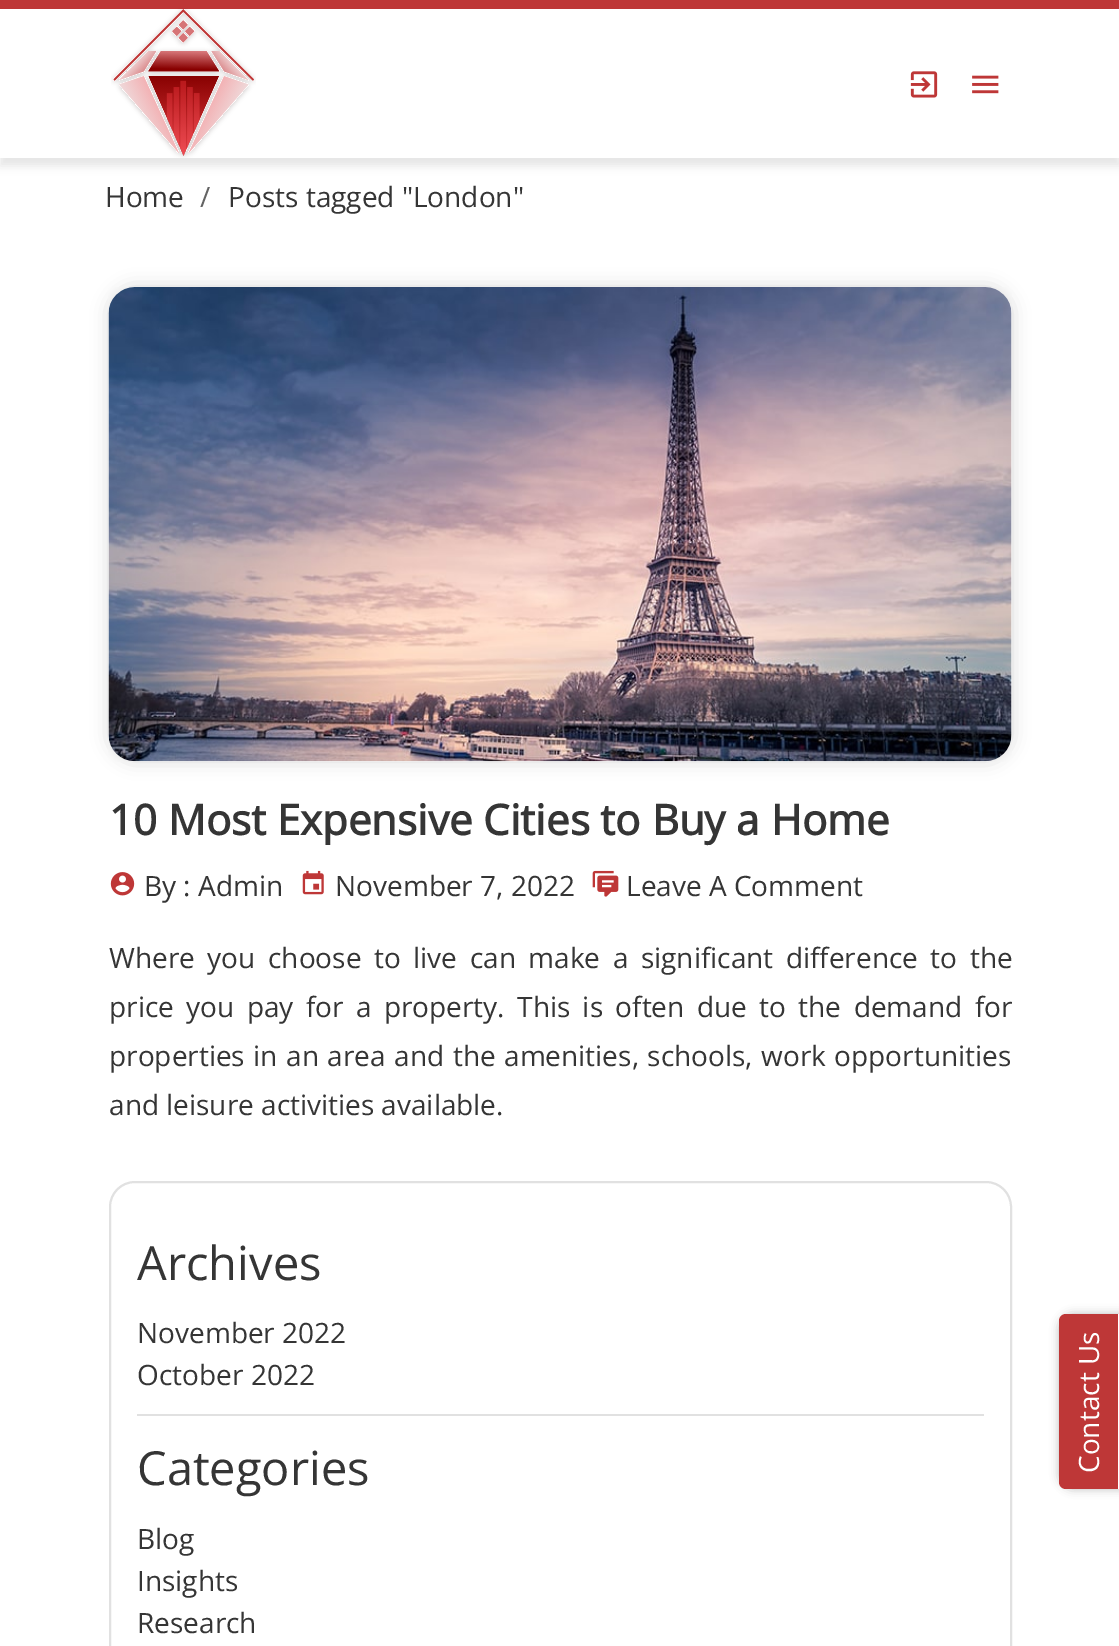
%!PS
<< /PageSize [1119 1646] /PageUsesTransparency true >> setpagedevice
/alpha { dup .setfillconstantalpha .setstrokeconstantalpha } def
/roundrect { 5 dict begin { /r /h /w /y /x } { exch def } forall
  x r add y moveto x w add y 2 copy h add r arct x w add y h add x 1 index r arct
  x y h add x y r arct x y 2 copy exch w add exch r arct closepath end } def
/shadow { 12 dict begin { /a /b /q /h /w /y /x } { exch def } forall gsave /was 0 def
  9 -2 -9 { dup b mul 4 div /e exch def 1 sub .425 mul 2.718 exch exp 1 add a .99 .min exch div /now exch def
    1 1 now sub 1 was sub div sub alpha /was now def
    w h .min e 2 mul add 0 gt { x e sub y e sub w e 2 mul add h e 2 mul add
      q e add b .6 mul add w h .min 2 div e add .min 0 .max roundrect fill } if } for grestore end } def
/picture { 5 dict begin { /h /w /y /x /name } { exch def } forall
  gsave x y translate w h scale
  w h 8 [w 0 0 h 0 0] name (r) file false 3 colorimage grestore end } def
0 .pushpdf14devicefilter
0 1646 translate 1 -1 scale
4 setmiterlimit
1 setgray
0 0 1119 1646 rectfill
0 setgray
0 9 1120 157 0 4.5 0.1 shadow
1 setgray
0 9 1119 149 rectfill
0.745 0.216 0.216 setrgbcolor
0 0 1119 9 rectfill
(img1.rgb) 111 8 145 150 picture
(img2.rgb) 910 71 28 27 picture
(img3.rgb) 972 75 27 19 picture
/OpenSans-Regular [28 0 0 -28 0 0] selectfont
0.208 setgray
105 207 moveto (Home) show
0.392 setgray
200 207 moveto (/) show
0.208 setgray
228 207 moveto (Posts tagged "London") show
0 setgray
109 287 903 474 26 9 0.15 shadow
(img4.rgb) 108 287 904 475 picture
/OpenSans-Bold [42 0 0 -42 0 0] selectfont
0.208 setgray
109 835 moveto (10 Most Expensive Cities to Buy a Home) show
(img5.rgb) 110 872 25 24 picture
/OpenSans-Regular [28 0 0 -28 0 0] selectfont
144 896 moveto (By : Admin) show
(img6.rgb) 302 870 22 25 picture
335 896 moveto (November 7, 2022) show
(img7.rgb) 592 870 27 27 picture
626 896 moveto (Leave A Comment) show
109 968 moveto 5.25 0 32 (Where you choose to live can make a significant difference to the) widthshow
109 1017 moveto 5.1 0 32 (price you pay for a property. This is often due to the demand for) widthshow
109 1066 moveto 1.25 0 32 (properties in an area and the amenities, schools, work opportunities) widthshow
109 1115 moveto (and leisure activities available.) show
0.882 setgray
2 setlinewidth
110 1182 901 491 25 roundrect stroke
137 1414 847 2 rectfill
/OpenSans-Regular [47 0 0 -47 0 0] selectfont
0.208 setgray
137 1280 moveto (Archives) show
/OpenSans-Regular [28 0 0 -28 0 0] selectfont
137 1343 moveto (November 2022) show
137 1385 moveto (October 2022) show
/OpenSans-Regular [47 0 0 -47 0 0] selectfont
137 1485 moveto (Categories) show
/OpenSans-Regular [28 0 0 -28 0 0] selectfont
137 1549 moveto (Blog) show
137 1591 moveto (Insights) show
137 1633 moveto (Research) show
0 setgray
1059 1314 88 175 14 4.5 0.25 shadow
1 setgray
newpath 1073 1314 moveto 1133 1314 lineto 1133 1489 lineto 1073 1489 lineto 1065.5 1489 1059 1482.5 1059 1475 curveto 1059 1328 lineto 1059 1320.5 1065.5 1314 1073 1314 curveto closepath fill
0.745 0.216 0.216 setrgbcolor
newpath 1059 1482 moveto 1059 1321 lineto 1059 1317 1062 1314 1066 1314 curveto 1118 1314 lineto 1118 1489 lineto 1066 1489 lineto 1062 1489 1059 1486 1059 1482 curveto closepath fill
1 setgray
gsave 1099 1473 translate -90 rotate 0 0 moveto (Contact Us) show grestore
.poppdf14devicefilter showpage
